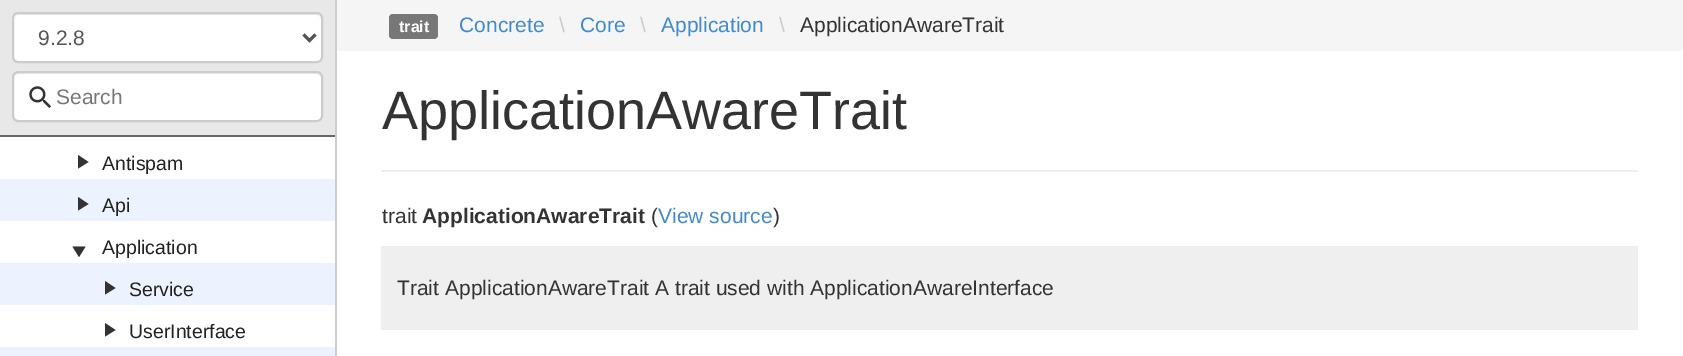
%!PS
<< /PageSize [1683 356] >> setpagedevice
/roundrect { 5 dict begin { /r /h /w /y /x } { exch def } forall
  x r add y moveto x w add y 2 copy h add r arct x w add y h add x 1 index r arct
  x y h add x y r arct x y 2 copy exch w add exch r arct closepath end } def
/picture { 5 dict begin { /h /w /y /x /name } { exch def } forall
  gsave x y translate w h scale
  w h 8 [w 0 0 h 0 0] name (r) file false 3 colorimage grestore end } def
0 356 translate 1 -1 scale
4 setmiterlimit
1 setgray
0 0 1683 356 rectfill
0.961 setgray
newpath 336 -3 moveto 1683 -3 lineto 1683 45 lineto 1683 48.5 1680.5 51 1677 51 curveto 342 51 lineto 338.5 51 336 48.5 336 45 curveto closepath fill
0.8 setgray
335 0 2 356 rectfill
0.91 setgray
0 0 335 135 rectfill
0.4 setgray
0 135 335 2 rectfill
1 setgray
12 12 311 51 6 roundrect fill
0.925 setgray
newpath 18 15 moveto 316 15 lineto 319 15 321 17 321 20 curveto 321 17 319 14 316 14 curveto 19 14 lineto 16 14 14 17 14 20 curveto 14 17 16 15 18 15 curveto closepath fill
0.8 setgray
2 setlinewidth
13 13 309 49 5 roundrect stroke
0.333 setgray
3 setlinewidth
newpath 303.5 34.5 moveto 309.5 40.5 lineto 315.5 34.5 lineto stroke
/LiberationSans-Regular [21 0 0 -21 0 0] selectfont
38 45 moveto (9.2.8) show
1 setgray
12 71 311 51 6 roundrect fill
0.925 setgray
newpath 18 74 moveto 316 74 lineto 319 74 321 76 321 78 curveto 321 75 319 72 316 72 curveto 19 72 lineto 16 72 14 75 14 78 curveto 14 76 16 74 18 74 curveto closepath fill
0.8 setgray
2 setlinewidth
13 72 309 49 5 roundrect stroke
(img1.rgb) 29 86 22 22 picture
0.467 setgray
56 104 moveto (Search) show
0.929 0.953 0.996 setrgbcolor
0 179 335 42 rectfill
0 263 335 42 rectfill
0 347 335 9 rectfill
0.2 setgray
newpath 78 155 moveto 78 168.5 lineto 88.5 162 lineto closepath fill
/LiberationSans-Regular [19.5 0 0 -19.5 0 0] selectfont
0.133 setgray
102 170 moveto (Antispam) show
0.2 setgray
newpath 78 197 moveto 78 210.5 lineto 88.5 204 lineto closepath fill
0.133 setgray
102 212 moveto (Api) show
0.2 setgray
newpath 85.5 246.5 moveto 72.5 246.5 lineto 79 257 lineto closepath fill
0.133 setgray
102 254 moveto (Application) show
0.2 setgray
newpath 105 281 moveto 105 294.5 lineto 115.5 288 lineto closepath fill
0.133 setgray
129 296 moveto (Service) show
0.2 setgray
newpath 105 323 moveto 105 336.5 lineto 115.5 330 lineto closepath fill
0.133 setgray
129 338 moveto (UserInterface) show
0.467 setgray
389 14 49 25 4 roundrect fill
/LiberationSans-Bold [16 0 0 -16 0 0] selectfont
1 setgray
399 32 moveto (trait) show
/LiberationSans-Regular [21 0 0 -21 0 0] selectfont
0.259 0.545 0.792 setrgbcolor
459 32 moveto (Concrete) show
0.8 setgray
559 32 moveto (\\) show
0.259 0.545 0.792 setrgbcolor
580 32 moveto (Core) show
0.8 setgray
640 32 moveto (\\) show
0.259 0.545 0.792 setrgbcolor
661 32 moveto (Application) show
0.8 setgray
779 32 moveto (\\) show
0.2 setgray
800 32 moveto (ApplicationAwareTrait) show
0.933 setgray
381 170 1257 2 rectfill
/LiberationSans-Regular [54 0 0 -54 0 0] selectfont
0.2 setgray
382 129 moveto (ApplicationAwareTrait) show
/LiberationSans-Regular [21 0 0 -21 0 0] selectfont
382 223 moveto (trait) show
/LiberationSans-Bold [21 0 0 -21 0 0] selectfont
422 223 moveto (ApplicationAwareTrait) show
/LiberationSans-Regular [21 0 0 -21 0 0] selectfont
651 223 moveto (\() show
0.259 0.545 0.792 setrgbcolor
658 223 moveto (View source) show
0.2 setgray
773 223 moveto (\)) show
0.937 setgray
381 246 1257 84 rectfill
0.2 setgray
397 295 moveto (Trait ApplicationAwareTrait A trait used with ApplicationAwareInterface) show
showpage
